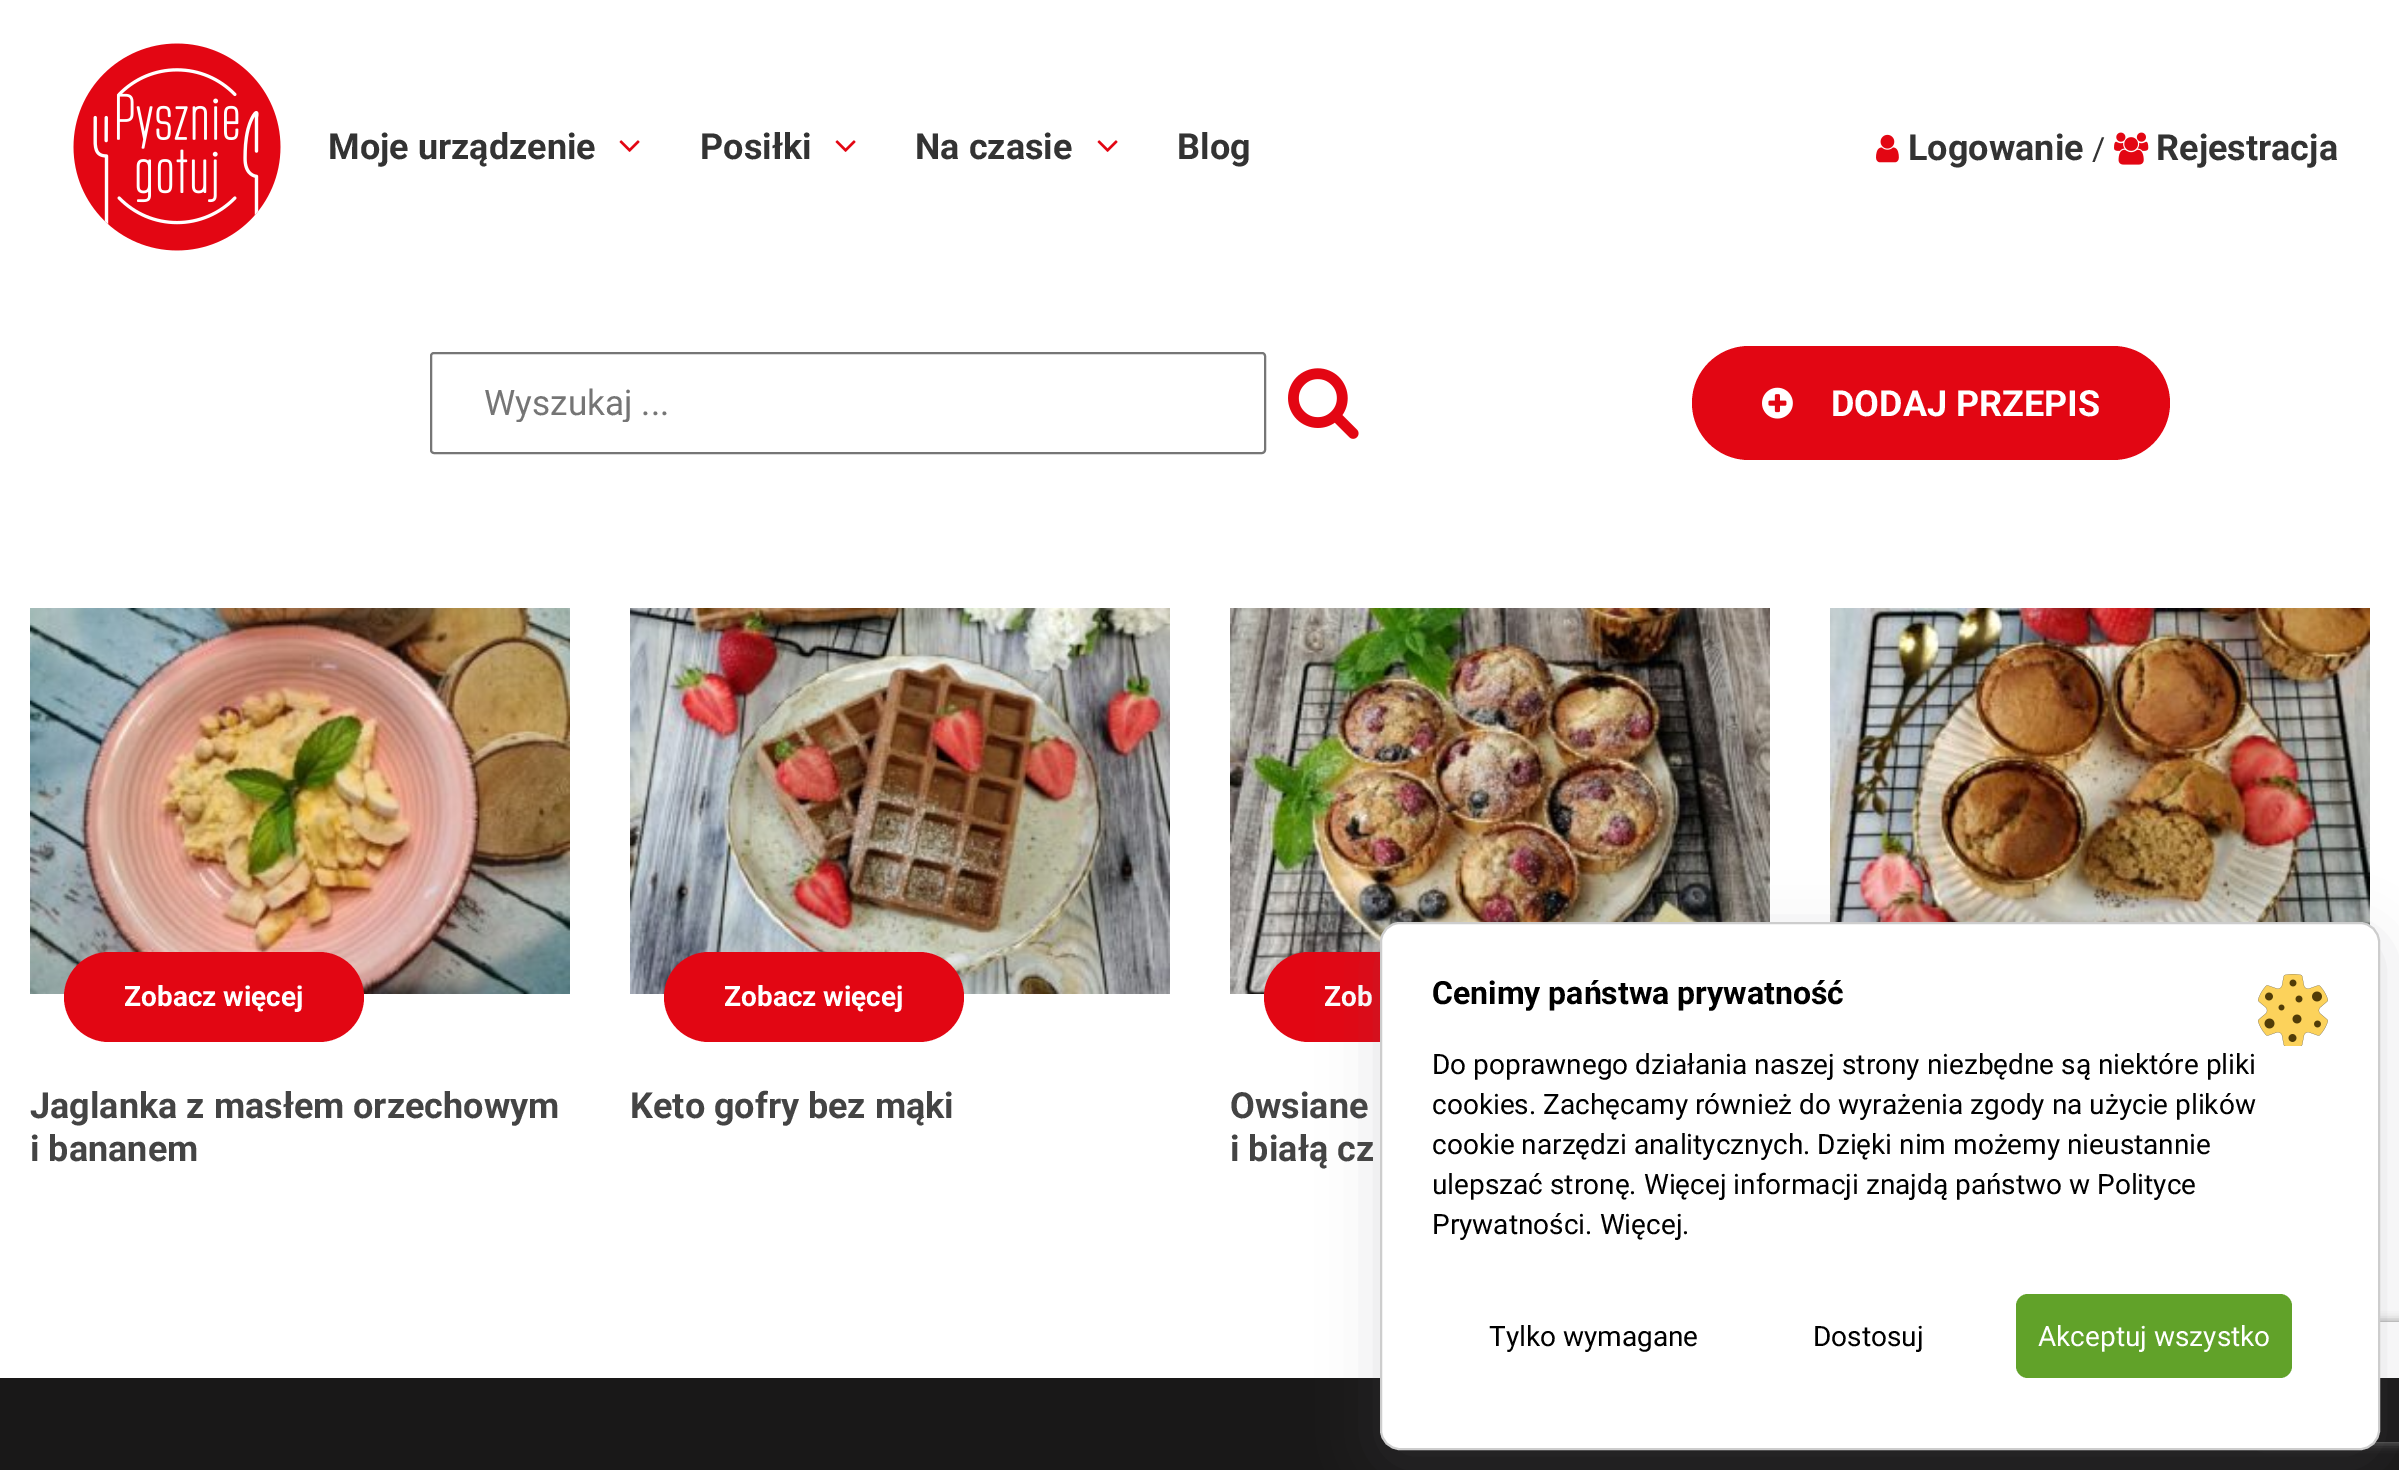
%!PS
<< /PageSize [2399 1470] /PageUsesTransparency true >> setpagedevice
/alpha { dup .setfillconstantalpha .setstrokeconstantalpha } def
/roundrect { 5 dict begin { /r /h /w /y /x } { exch def } forall
  x r add y moveto x w add y 2 copy h add r arct x w add y h add x 1 index r arct
  x y h add x y r arct x y 2 copy exch w add exch r arct closepath end } def
/shadow { 12 dict begin { /a /b /q /h /w /y /x } { exch def } forall gsave /was 0 def
  9 -2 -9 { dup b mul 4 div /e exch def 1 sub .425 mul 2.718 exch exp 1 add a .99 .min exch div /now exch def
    1 1 now sub 1 was sub div sub alpha /was now def
    w h .min e 2 mul add 0 gt { x e sub y e sub w e 2 mul add h e 2 mul add
      q e add b .6 mul add w h .min 2 div e add .min 0 .max roundrect fill } if } for grestore end } def
/picture { 5 dict begin { /h /w /y /x /name } { exch def } forall
  gsave x y translate w h scale
  w h 8 [w 0 0 h 0 0] name (r) file false 3 colorimage grestore end } def
0 .pushpdf14devicefilter
0 1470 translate 1 -1 scale
4 setmiterlimit
1 setgray
0 0 2399 1470 rectfill
(img1.rgb) 73 43 208 208 picture
/Roboto-Bold [36 0 0 -36 0 0] selectfont
0.2 setgray
328 159 moveto (Moje urządzenie) show
(img2.rgb) 619 140 21 12 picture
700 159 moveto (Posiłki) show
(img2.rgb) 835 140 21 12 picture
915 159 moveto (Na czasie) show
(img2.rgb) 1097 140 21 12 picture
1177 159 moveto (Blog) show
(img3.rgb) 1876 134 23 29 picture
1908 160 moveto (Logowanie) show
/Roboto-Regular [32 0 0 -32 0 0] selectfont
2092 160 moveto (/) show
(img4.rgb) 2114 132 35 33 picture
/Roboto-Bold [36 0 0 -36 0 0] selectfont
2156 160 moveto (Rejestracja) show
0.463 setgray
2 setlinewidth
431 353 834 100 3 roundrect stroke
gsave
484 382 728 40 rectclip
/Roboto-Regular [35.25 0 0 -35.25 0 0] selectfont
0.459 setgray
484 415 moveto (Wyszukaj ...) show
grestore
(img5.rgb) 1288 368 71 71 picture
0.886 0.024 0.075 setrgbcolor
1692 346 478 114 57 roundrect fill
(img6.rgb) 1762 387 31 32 picture
1 setgray
1831 416 moveto (DODAJ PRZEPIS) show
(img7.rgb) 1830 608 540 317 picture
(img8.rgb) 30 608 540 386 picture
0.886 0.024 0.075 setrgbcolor
64 952 300 90 45 roundrect fill
/Roboto-Bold [28 0 0 -28 0 0] selectfont
1 setgray
124 1006 moveto (Zobacz więcej) show
/Roboto-Bold [36 0 0 -36 0 0] selectfont
0.267 setgray
30 1118 moveto (Jaglanka z masłem orzechowym) show
30 1161 moveto (i bananem) show
(img9.rgb) 630 608 540 386 picture
0.886 0.024 0.075 setrgbcolor
664 952 300 90 45 roundrect fill
/Roboto-Bold [28 0 0 -28 0 0] selectfont
1 setgray
724 1006 moveto (Zobacz więcej) show
/Roboto-Bold [36 0 0 -36 0 0] selectfont
0.267 setgray
630 1118 moveto (Keto gofry bez mąki) show
(img10.rgb) 1230 608 540 386 picture
0.886 0.024 0.075 setrgbcolor
1264 952 300 90 45 roundrect fill
/Roboto-Bold [28 0 0 -28 0 0] selectfont
1 setgray
1324 1006 moveto (Zob) show
/Roboto-Bold [36 0 0 -36 0 0] selectfont
0.267 setgray
1230 1118 moveto (Owsiane) show
1230 1161 moveto (i białą cz) show
0.098 0.094 0.094 setrgbcolor
0 1378 2399 92 rectfill
0.392 0.392 0.435 setrgbcolor
1380 936 1000 528 20 29 0.2 shadow
gsave
newpath 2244 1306 moveto 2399 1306 lineto 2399 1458 lineto 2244 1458 lineto closepath 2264 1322 moveto 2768 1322 lineto 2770 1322 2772 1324 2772 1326 curveto 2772 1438 lineto 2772 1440 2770 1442 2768 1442 curveto 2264 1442 lineto 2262 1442 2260 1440 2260 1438 curveto 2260 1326 lineto 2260 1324 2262 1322 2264 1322 curveto closepath eoclip newpath
0.502 setgray
2260 1322 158 120 4 5 1 shadow
grestore
1 setgray
1381 923 998 526 19 roundrect gsave fill grestore
0.804 setgray
stroke
/Roboto-Bold [32 0 0 -32 0 0] selectfont
0 setgray
1432 1004 moveto (Cenimy państwa prywatność) show
(img11.rgb) 2258 974 70 72 picture
/Roboto-Regular [28 0 0 -28 0 0] selectfont
1432 1074 moveto (Do poprawnego działania naszej strony niezbędne są niektóre pliki) show
1432 1114 moveto (cookies. Zachęcamy również do wyrażenia zgody na użycie plików) show
1432 1154 moveto (cookie narzędzi analitycznych. Dzięki nim możemy nieustannie) show
1432 1194 moveto (ulepszać stronę. Więcej informacji znajdą państwo w Polityce) show
1432 1234 moveto (Prywatności. Więcej.) show
1489 1346 moveto (Tylko wymagane) show
1813 1346 moveto (Dostosuj) show
0.38 0.635 0.161 setrgbcolor
2016 1294 276 84 12 roundrect fill
1 setgray
2038 1346 moveto (Akceptuj wszystko) show
.poppdf14devicefilter showpage
